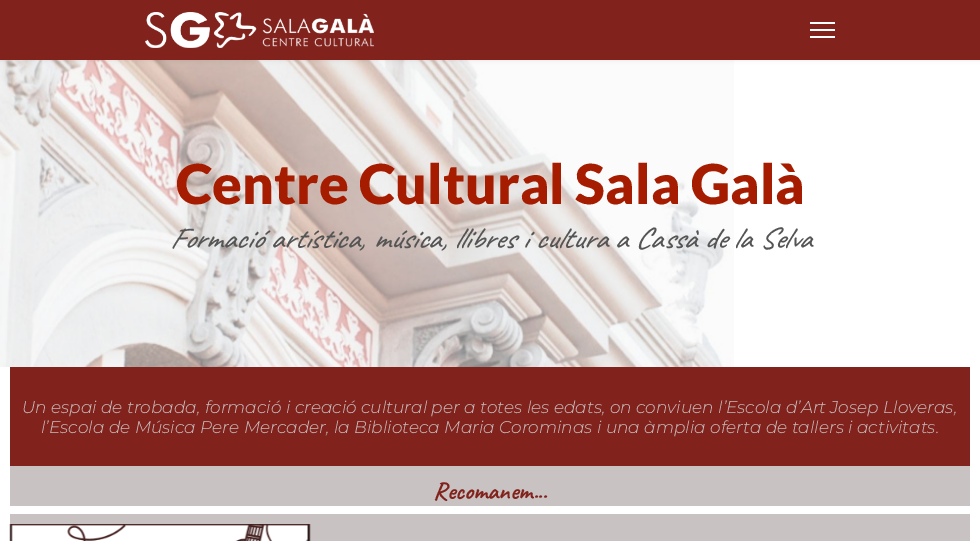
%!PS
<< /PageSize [980 541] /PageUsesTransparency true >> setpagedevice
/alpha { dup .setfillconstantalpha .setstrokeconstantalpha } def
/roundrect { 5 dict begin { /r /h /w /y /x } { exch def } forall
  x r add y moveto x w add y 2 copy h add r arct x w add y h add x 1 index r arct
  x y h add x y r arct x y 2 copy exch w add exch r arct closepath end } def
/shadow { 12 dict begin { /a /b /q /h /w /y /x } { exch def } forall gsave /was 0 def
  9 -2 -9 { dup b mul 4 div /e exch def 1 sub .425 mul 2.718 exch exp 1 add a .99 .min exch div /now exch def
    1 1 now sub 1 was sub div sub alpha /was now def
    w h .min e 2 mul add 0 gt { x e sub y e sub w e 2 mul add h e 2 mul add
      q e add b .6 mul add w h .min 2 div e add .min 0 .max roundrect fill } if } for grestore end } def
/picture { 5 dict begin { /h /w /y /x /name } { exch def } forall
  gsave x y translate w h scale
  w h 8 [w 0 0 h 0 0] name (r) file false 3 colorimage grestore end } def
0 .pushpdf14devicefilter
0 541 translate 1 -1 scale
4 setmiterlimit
1 setgray
0 0 980 541 rectfill
(img2.rgb) 0 60 734 307 picture
0 setgray
0 0 980 60 0 2 0.1 shadow
0.506 0.133 0.114 setrgbcolor
0 0 980 60 rectfill
(img1.rgb) 145 12 229 36 picture
1 setgray
810 22 25 2 rectfill
810 29 25 2 rectfill
810 36 25 2 rectfill
/Lato-Black [55 0 0 -55 0 0] selectfont
0.651 0.11 0 setrgbcolor
176 204 moveto (Centre Cultural Sala Galà) show
/Caveat-MediumItalic [30 0 0 -30 0 0] selectfont
0.333 setgray
170 248 moveto 0.25 0 32 (Formació artística, música, llibres i cultura a Cassà de la Selva) widthshow
0.506 0.133 0.114 setrgbcolor
10 367 960 99 rectfill
/Montserrat-LightItalic [17 0 0 -17 0 0] selectfont
0.788 0.761 0.761 setrgbcolor
22 413 moveto (Un espai de trobada, formació i creació cultural per a totes les edats, on conviuen l’Escola d’Art Josep Lloveras,) show
41 433 moveto (l’Escola de Música Pere Mercader, la Biblioteca Maria Corominas i una àmplia oferta de tallers i activitats.) show
10 466 960 40 rectfill
/Caveat-Bold [25 0 0 -25 0 0] selectfont
0.506 0.133 0.114 setrgbcolor
433 499 moveto (Recomanem...) show
0.788 0.761 0.761 setrgbcolor
10 514 960 27 rectfill
(img3.rgb) 9 524 302 17 picture
.poppdf14devicefilter showpage
